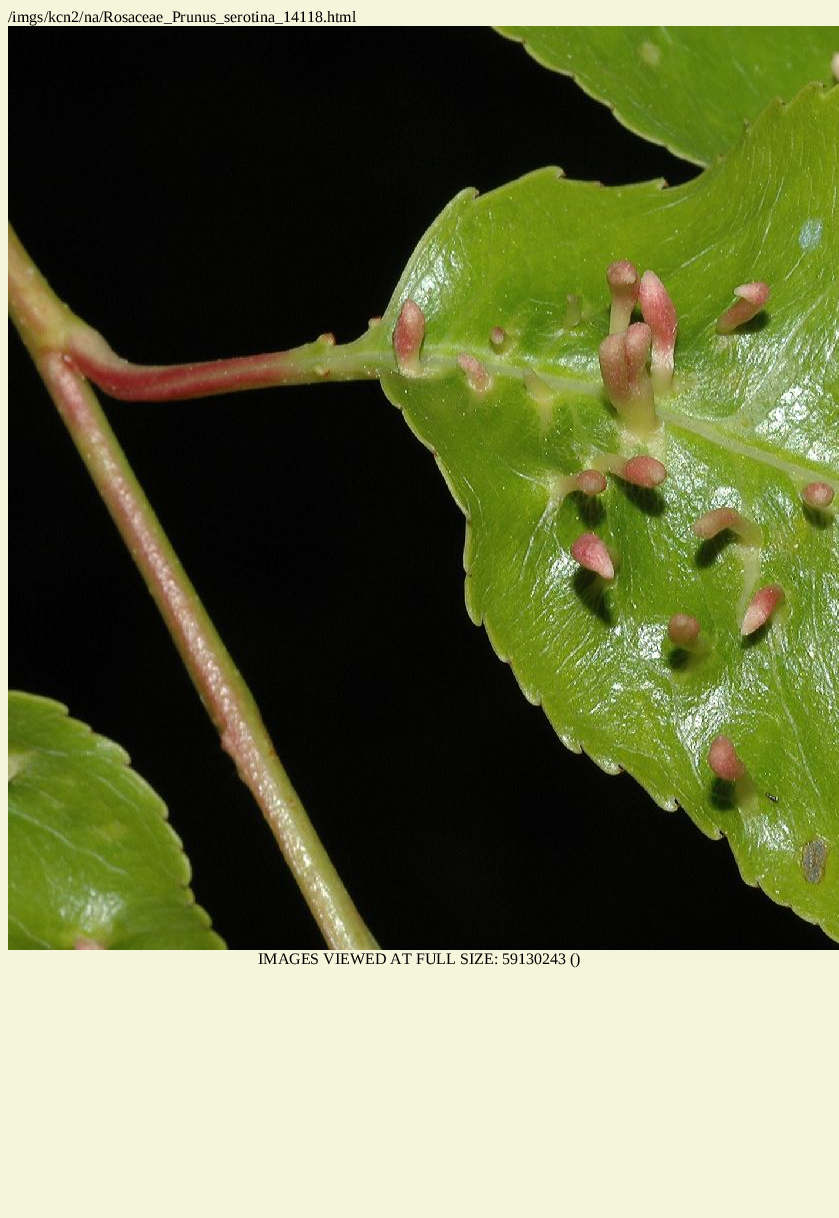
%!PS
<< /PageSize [839 1218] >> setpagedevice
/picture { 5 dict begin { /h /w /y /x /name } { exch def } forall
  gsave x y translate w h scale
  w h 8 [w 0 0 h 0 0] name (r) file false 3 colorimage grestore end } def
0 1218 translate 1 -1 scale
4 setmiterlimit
0.961 0.961 0.863 setrgbcolor
0 0 839 1218 rectfill
/LiberationSerif-Regular [16 0 0 -16 0 0] selectfont
0 setgray
8 22 moveto (/imgs/kcn2/na/Rosaceae_Prunus_serotina_14118.html) show
(img1.rgb) 8 26 831 924 picture
258 964 moveto (IMAGES VIEWED AT FULL SIZE: 59130243 \(\)) show
showpage
